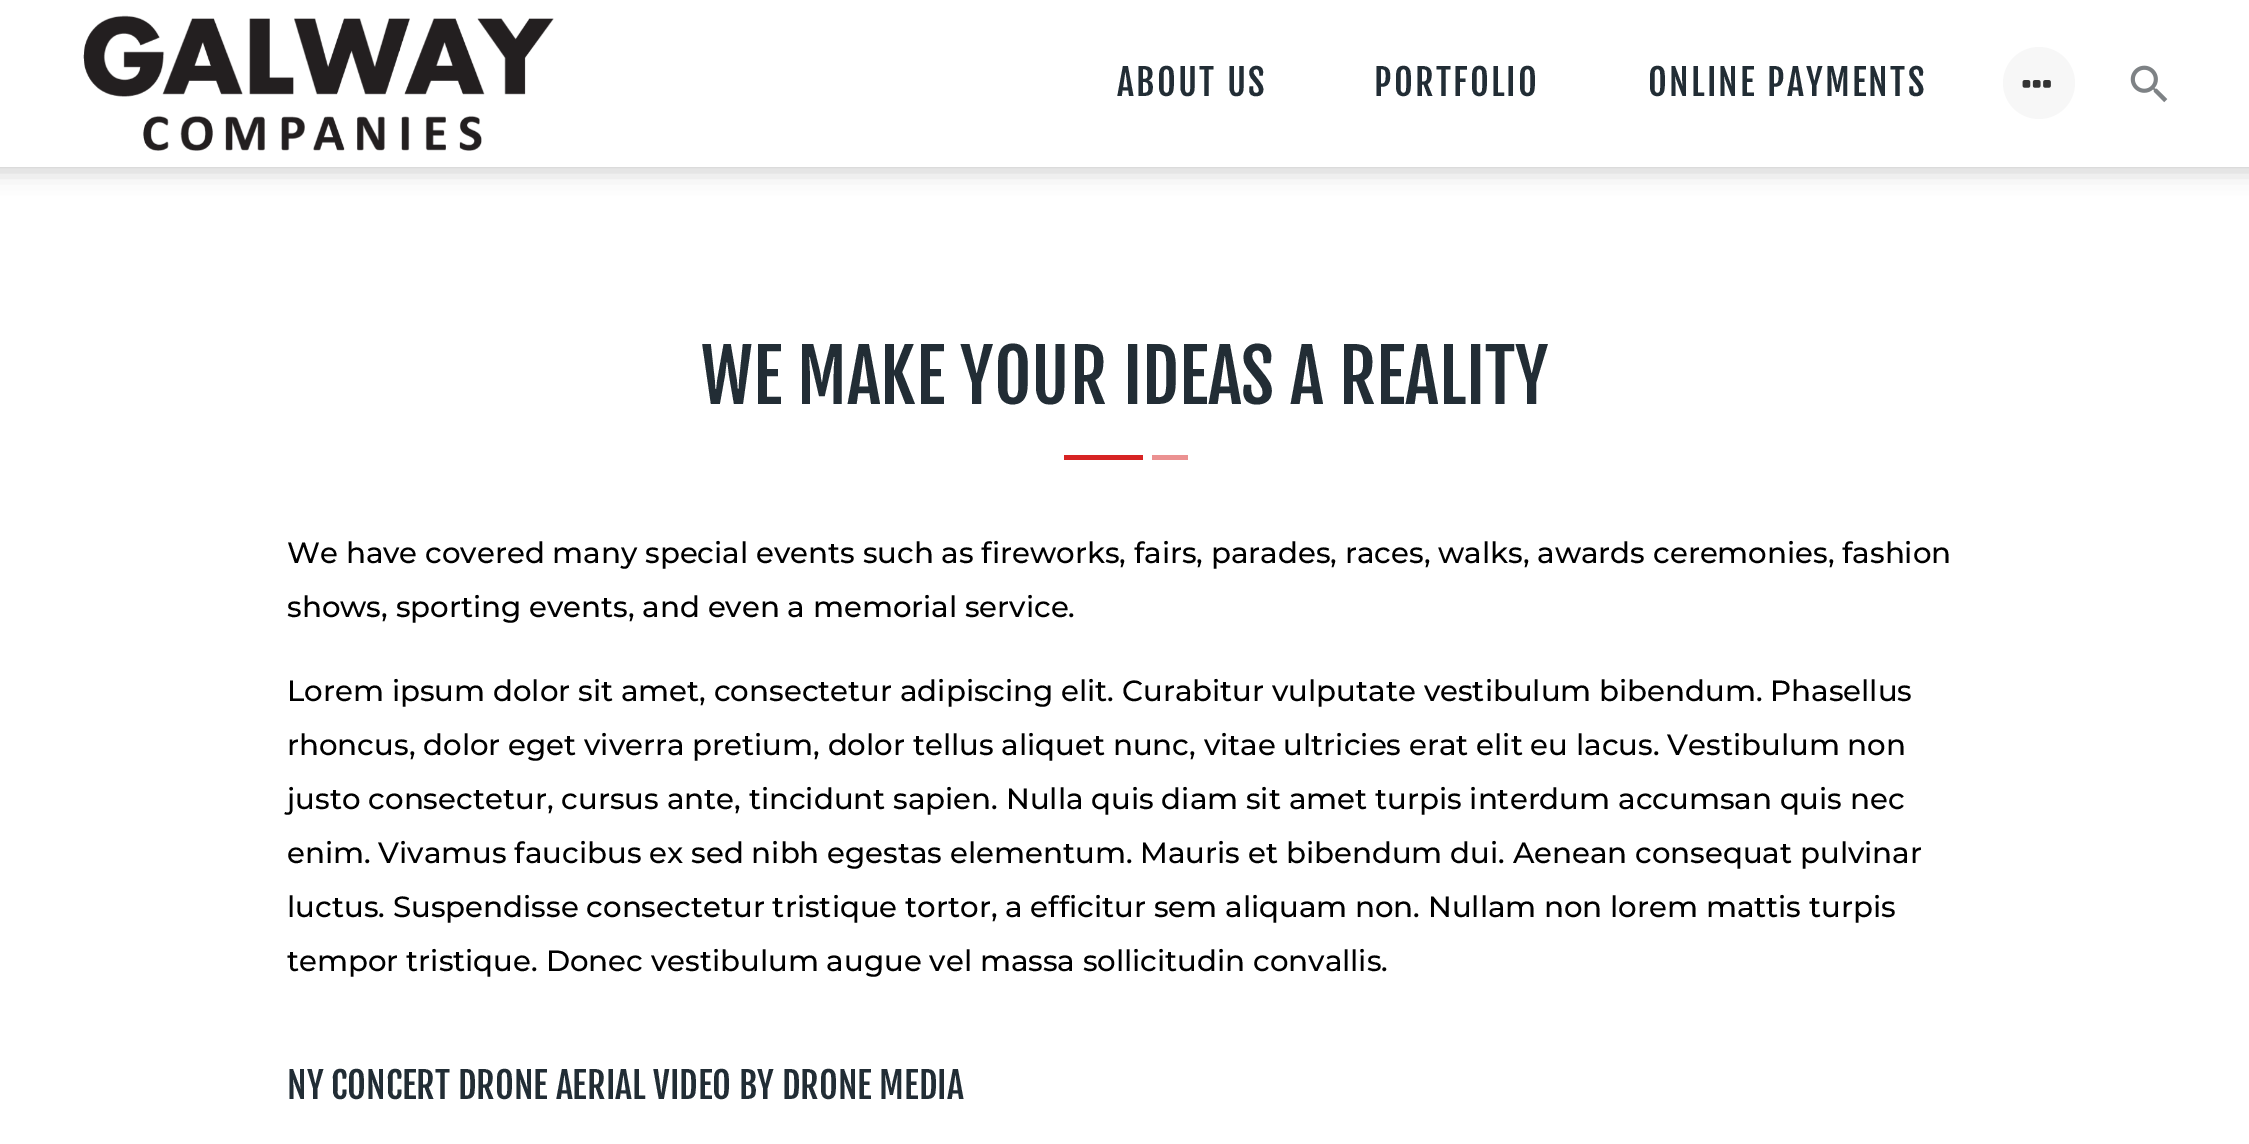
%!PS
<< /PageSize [2249 1144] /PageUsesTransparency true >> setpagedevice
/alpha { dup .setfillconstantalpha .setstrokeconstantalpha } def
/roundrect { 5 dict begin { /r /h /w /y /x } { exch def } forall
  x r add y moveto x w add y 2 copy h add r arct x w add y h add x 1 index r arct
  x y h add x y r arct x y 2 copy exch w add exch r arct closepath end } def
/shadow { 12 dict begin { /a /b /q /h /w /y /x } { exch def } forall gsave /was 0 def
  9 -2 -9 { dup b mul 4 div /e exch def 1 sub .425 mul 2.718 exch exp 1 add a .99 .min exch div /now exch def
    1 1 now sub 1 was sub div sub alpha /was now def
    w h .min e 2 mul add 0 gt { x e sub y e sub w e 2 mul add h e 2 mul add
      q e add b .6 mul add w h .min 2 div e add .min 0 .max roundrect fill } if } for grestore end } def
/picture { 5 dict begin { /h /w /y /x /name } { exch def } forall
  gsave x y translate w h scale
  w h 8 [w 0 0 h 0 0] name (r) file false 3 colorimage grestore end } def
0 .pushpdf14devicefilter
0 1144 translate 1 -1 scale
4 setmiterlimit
1 setgray
0 0 2249 1144 rectfill
0 setgray
-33 5 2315 166 0 11 0.2 shadow
1 setgray
0 0 2249 167 rectfill
(img1.rgb) 83 15 471 136 picture
/FjallaOne-Regular [36 0 0 -36 0 0] selectfont
0.133 0.176 0.208 setrgbcolor
1117 96 moveto 2.25 0 (ABOUT US) ashow
1374 96 moveto 2.25 0 (PORTFOLIO) ashow
1648 96 moveto 2.25 0 (ONLINE PAYMENTS) ashow
0.969 setgray
newpath 2039 83 36 0 360 arc closepath fill
(img2.rgb) 2022 80 29 8 picture
(img3.rgb) 2130 65 38 38 picture
/FjallaOne-Regular [72 0 0 -72 0 0] selectfont
0.133 0.176 0.208 setrgbcolor
701 404 moveto (WE MAKE YOUR IDEAS A REALITY) show
0.843 0.137 0.137 setrgbcolor
1064 455 79 5 rectfill
0.922 0.569 0.569 setrgbcolor
1152 455 36 5 rectfill
/Montserrat-Medium [29.25 0 0 -29.25 0 0] selectfont
0 setgray
287 563 moveto (We have covered many special events such as fireworks, fairs, parades, races, walks, awards ceremonies, fashion) show
287 617 moveto (shows, sporting events, and even a memorial service.) show
287 701 moveto (Lorem ipsum dolor sit amet, consectetur adipiscing elit. Curabitur vulputate vestibulum bibendum. Phasellus) show
287 755 moveto (rhoncus, dolor eget viverra pretium, dolor tellus aliquet nunc, vitae ultricies erat elit eu lacus. Vestibulum non) show
287 809 moveto (justo consectetur, cursus ante, tincidunt sapien. Nulla quis diam sit amet turpis interdum accumsan quis nec) show
287 863 moveto (enim. Vivamus faucibus ex sed nibh egestas elementum. Mauris et bibendum dui. Aenean consequat pulvinar) show
287 917 moveto (luctus. Suspendisse consectetur tristique tortor, a efficitur sem aliquam non. Nullam non lorem mattis turpis) show
287 971 moveto (tempor tristique. Donec vestibulum augue vel massa sollicitudin convallis.) show
/FjallaOne-Regular [36 0 0 -36 0 0] selectfont
0.133 0.176 0.208 setrgbcolor
287 1099 moveto (NY CONCERT DRONE AERIAL VIDEO BY DRONE MEDIA) show
.poppdf14devicefilter showpage
